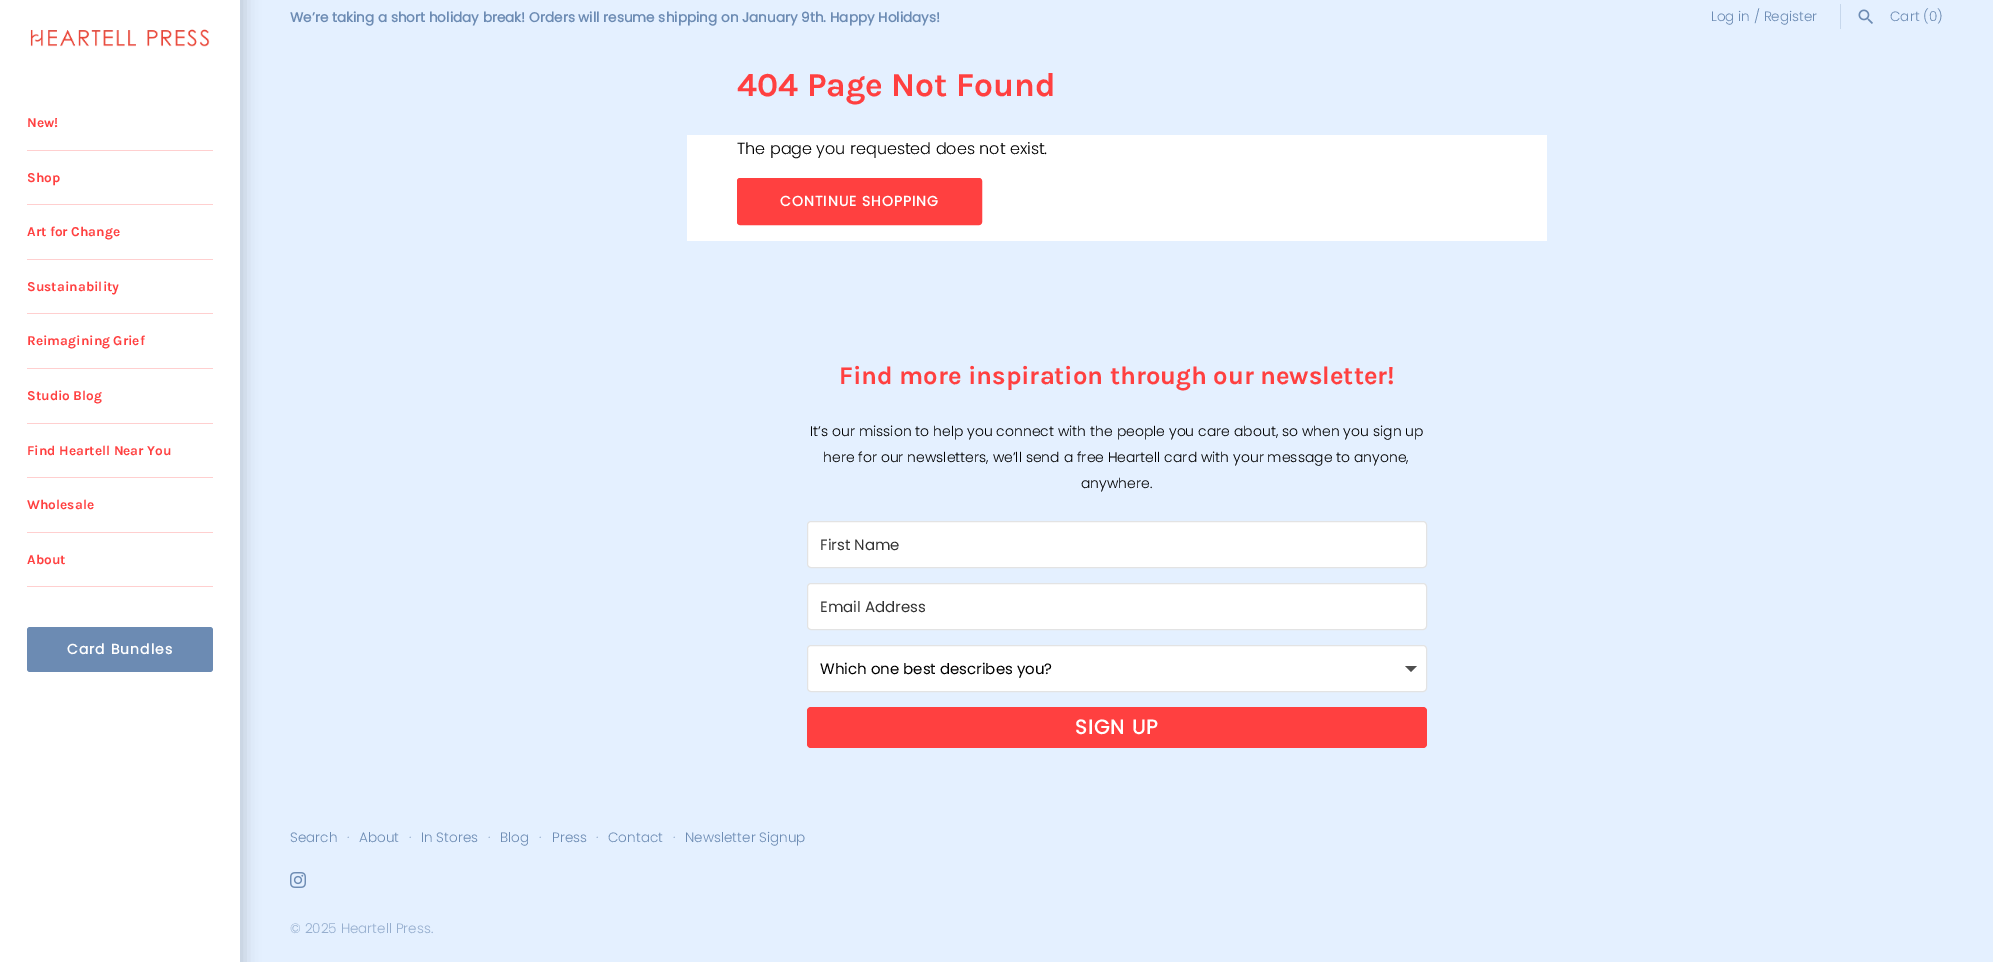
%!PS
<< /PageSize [1993 962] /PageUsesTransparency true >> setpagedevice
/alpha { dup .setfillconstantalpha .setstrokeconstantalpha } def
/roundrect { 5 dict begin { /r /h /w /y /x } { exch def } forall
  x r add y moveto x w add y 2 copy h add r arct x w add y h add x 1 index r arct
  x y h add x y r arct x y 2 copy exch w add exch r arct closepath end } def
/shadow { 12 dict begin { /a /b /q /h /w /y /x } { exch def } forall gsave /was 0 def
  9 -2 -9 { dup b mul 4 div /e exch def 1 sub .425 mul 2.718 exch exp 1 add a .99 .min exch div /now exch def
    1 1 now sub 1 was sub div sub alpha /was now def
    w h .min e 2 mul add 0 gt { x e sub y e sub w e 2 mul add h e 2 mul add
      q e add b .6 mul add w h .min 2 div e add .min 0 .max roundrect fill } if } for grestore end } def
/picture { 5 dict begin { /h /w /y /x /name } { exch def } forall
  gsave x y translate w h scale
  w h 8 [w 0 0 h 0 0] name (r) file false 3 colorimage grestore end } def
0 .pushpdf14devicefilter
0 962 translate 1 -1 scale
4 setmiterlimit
0.894 0.941 1 setrgbcolor
0 0 1993 962 rectfill
/Poppins-Bold [13.6 0 0 -13.6 0 0] selectfont
0.424 0.545 0.702 setrgbcolor
290 22 moveto (We’re taking a short holiday break! Orders will resume shipping on January 9th. Happy Holidays!) show
/Poppins-Light [13.6 0 0 -13.6 0 0] selectfont
1711 21 moveto (Log in / Register) show
0.776 0.843 0.925 setrgbcolor
1840 4 1 25 rectfill
(img1.rgb) 1858 9 15 15 picture
0.424 0.545 0.702 setrgbcolor
1890 21 moveto (Cart \(0\)) show
0 setgray
-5 -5 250 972 0 7.5 0.15 shadow
1 setgray
0 0 240 962 rectfill
(img2.rgb) 30 29 180 18 picture
1 0.812 0.812 setrgbcolor
27 150 186 1 rectfill
/Karla-Bold [13.6 0 0 -13.6 0 0] selectfont
1 0.251 0.251 setrgbcolor
27 127 moveto (New!) show
1 0.812 0.812 setrgbcolor
27 204 186 1 rectfill
1 0.251 0.251 setrgbcolor
27 182 moveto (Shop) show
1 0.812 0.812 setrgbcolor
27 259 186 1 rectfill
1 0.251 0.251 setrgbcolor
27 236 moveto (Art for Change) show
1 0.812 0.812 setrgbcolor
27 313 186 1 rectfill
1 0.251 0.251 setrgbcolor
27 291 moveto (Sustainability) show
1 0.812 0.812 setrgbcolor
27 368 186 1 rectfill
1 0.251 0.251 setrgbcolor
27 345 moveto (Reimagining Grief) show
1 0.812 0.812 setrgbcolor
27 423 186 1 rectfill
1 0.251 0.251 setrgbcolor
27 400 moveto (Studio Blog) show
1 0.812 0.812 setrgbcolor
27 477 186 1 rectfill
1 0.251 0.251 setrgbcolor
27 455 moveto (Find Heartell Near You) show
1 0.812 0.812 setrgbcolor
27 532 186 1 rectfill
1 0.251 0.251 setrgbcolor
27 509 moveto (Wholesale) show
1 0.812 0.812 setrgbcolor
27 586 186 1 rectfill
1 0.251 0.251 setrgbcolor
27 564 moveto (About) show
0.424 0.545 0.702 setrgbcolor
27 627 186 45 3 roundrect fill
/Poppins-Bold [14 0 0 -14 0 0] selectfont
1 setgray
67 654 moveto 1 0 (Card Bundles) ashow
/Karla-Bold [33.5 0 0 -33.5 0 0] selectfont
1 0.251 0.251 setrgbcolor
737 96 moveto (404 Page Not Found) show
1 setgray
687 135 860 106 rectfill
/Poppins-Light [16 0 0 -16 0 0] selectfont
0 setgray
737 154 moveto (The page you requested does not exist.) show
1 0.251 0.251 setrgbcolor
737.5 178.5 244 46 2.5 roundrect gsave fill grestore
stroke
/Poppins-Bold [14 0 0 -14 0 0] selectfont
1 setgray
780 206 moveto 1 0 (CONTINUE SHOPPING) ashow
/Karla-Bold [25.5 0 0 -25.5 0 0] selectfont
1 0.251 0.251 setrgbcolor
839 384 moveto (Find more inspiration through our newsletter!) show
/Poppins-Light [14 0 0 -14 0 0] selectfont
0 setgray
810 436 moveto (It’s our mission to help you connect with the people you care about, so when you sign up) show
823 462 moveto (here for our newsletters, we’ll send a free Heartell card with your message to anyone,) show
1081 488 moveto (anywhere.) show
1 setgray
807.5 521.5 619 46 3.5 roundrect gsave fill grestore
0.89 setgray
stroke
/Poppins-Regular [15 0 0 -15 0 0] selectfont
0.2 setgray
820 550 moveto (First Name) show
1 setgray
807.5 583.5 619 46 3.5 roundrect gsave fill grestore
0.89 setgray
stroke
0.2 setgray
820 612 moveto (Email Address) show
1 setgray
807.5 645.5 619 46 3.5 roundrect gsave fill grestore
0.89 setgray
stroke
0 setgray
820 674 moveto (Which one best describes you?) show
0.31 setgray
newpath 1405 666 moveto 1417 666 lineto 1411 672 lineto closepath fill
1 0.251 0.251 setrgbcolor
807 707 620 41 4 roundrect fill
/Poppins-Bold [20 0 0 -20 0 0] selectfont
1 setgray
1075 734 moveto 1 0 (SIGN UP) ashow
/Poppins-Light [13.6 0 0 -13.6 0 0] selectfont
0.424 0.545 0.702 setrgbcolor
290 842 moveto (Search) show
0.588 0.682 0.808 setrgbcolor
347 842 moveto (·) show
0.424 0.545 0.702 setrgbcolor
359 842 moveto (About) show
0.588 0.682 0.808 setrgbcolor
409 842 moveto (·) show
0.424 0.545 0.702 setrgbcolor
421 842 moveto (In Stores) show
0.588 0.682 0.808 setrgbcolor
488 842 moveto (·) show
0.424 0.545 0.702 setrgbcolor
500 842 moveto (Blog) show
0.588 0.682 0.808 setrgbcolor
539 842 moveto (·) show
0.424 0.545 0.702 setrgbcolor
552 842 moveto (Press) show
0.588 0.682 0.808 setrgbcolor
596 842 moveto (·) show
0.424 0.545 0.702 setrgbcolor
608 842 moveto (Contact) show
0.588 0.682 0.808 setrgbcolor
673 842 moveto (·) show
0.424 0.545 0.702 setrgbcolor
685 842 moveto (Newsletter Signup) show
(img3.rgb) 290 872 16 16 picture
0.588 0.682 0.808 setrgbcolor
290 933 moveto (© 2025 Heartell Press.) show
.poppdf14devicefilter showpage
